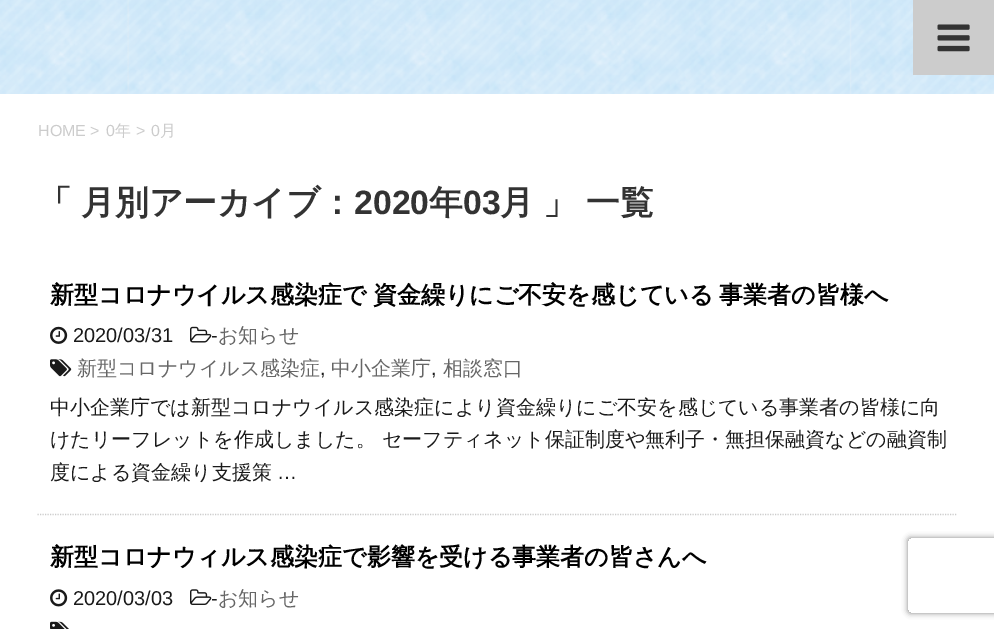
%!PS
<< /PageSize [994 629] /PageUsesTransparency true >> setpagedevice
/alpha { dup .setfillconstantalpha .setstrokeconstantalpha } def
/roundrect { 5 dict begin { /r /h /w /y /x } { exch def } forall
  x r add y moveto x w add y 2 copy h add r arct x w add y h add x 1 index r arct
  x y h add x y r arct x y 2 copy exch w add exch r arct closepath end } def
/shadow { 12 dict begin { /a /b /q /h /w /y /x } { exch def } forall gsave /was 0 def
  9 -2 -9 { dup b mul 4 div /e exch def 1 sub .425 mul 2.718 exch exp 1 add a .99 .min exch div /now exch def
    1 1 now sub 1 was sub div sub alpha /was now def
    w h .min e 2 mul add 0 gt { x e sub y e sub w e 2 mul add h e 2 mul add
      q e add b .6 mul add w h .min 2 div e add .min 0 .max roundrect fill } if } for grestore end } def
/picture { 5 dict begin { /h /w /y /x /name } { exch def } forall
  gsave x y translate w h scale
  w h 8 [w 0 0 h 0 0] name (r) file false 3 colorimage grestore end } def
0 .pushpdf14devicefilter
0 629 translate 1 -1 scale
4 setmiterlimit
1 setgray
0 0 994 629 rectfill
(img1.rgb) 0 0 994 94 picture
0.8 setgray
913 0 81 75 rectfill
(img2.rgb) 937 24 33 28 picture
/LiberationSans-Regular [16 0 0 -16 0 0] selectfont
38 136 moveto (HOME >) show
106 136 moveto (0) show
/WenQuanYiZenHei-Medium [16 0 0 -16 0 0] selectfont
115 136 moveto (年) show
/LiberationSans-Regular [16 0 0 -16 0 0] selectfont
136 136 moveto (>) show
151 136 moveto (0) show
/WenQuanYiZenHei-Medium [16 0 0 -16 0 0] selectfont
160 136 moveto (月) show
/WenQuanYiZenHei-Bold [33.75 0 0 -33.75 0 0] selectfont
0.2 setgray
38 214 moveto (「) show
81 214 moveto (月別アーカイブ：) show
/LiberationSans-Bold [33.75 0 0 -33.75 0 0] selectfont
354 214 moveto (2020) show
/WenQuanYiZenHei-Bold [33.75 0 0 -33.75 0 0] selectfont
429 214 moveto (年) show
/LiberationSans-Bold [33.75 0 0 -33.75 0 0] selectfont
463 214 moveto (03) show
/WenQuanYiZenHei-Bold [33.75 0 0 -33.75 0 0] selectfont
500 214 moveto (月) show
543 214 moveto -1 0 32 (」 一覧) widthshow
0.8 setgray
1.2 setlinewidth
[1.25 1.25] 0 setdash
newpath 37.5 514.5 moveto 957.5 514.5 lineto stroke
/WenQuanYiZenHei-Bold [24 0 0 -24 0 0] selectfont
0 setgray
50 303 moveto -1 0 32 (新型コロナウイルス感染症で 資金繰りにご不安を感じている 事業者の皆様へ) widthshow
(img3.rgb) 50 326 18 18 picture
(img4.rgb) 190 326 22 17 picture
/LiberationSans-Regular [20 0 0 -20 0 0] selectfont
0.102 setgray
211 342 moveto (-) show
/WenQuanYiZenHei-Medium [20 0 0 -20 0 0] selectfont
0.4 setgray
218 342 moveto (お知らせ) show
(img5.rgb) 50 359 22 18 picture
77 375 moveto (新型コロナウイルス感染症) show
/LiberationSans-Regular [20 0 0 -20 0 0] selectfont
0.102 setgray
320 375 moveto (,) show
/WenQuanYiZenHei-Medium [20 0 0 -20 0 0] selectfont
0.4 setgray
331 375 moveto (中小企業庁) show
/LiberationSans-Regular [20 0 0 -20 0 0] selectfont
0.102 setgray
431 375 moveto (,) show
/WenQuanYiZenHei-Medium [20 0 0 -20 0 0] selectfont
0.4 setgray
443 375 moveto (相談窓口) show
/LiberationSans-Regular [20 0 0 -20 0 0] selectfont
0.102 setgray
73 342 moveto (2020/03/31) show
/WenQuanYiZenHei-Medium [20 0 0 -20 0 0] selectfont
50 414 moveto (中小企業庁では新型コロナウイルス感染症により資金繰りにご不安を感じている事業者の皆様に向) show
50 446 moveto (けたリーフレットを作成しました。 セーフティネット保証制度や無利子・無担保融資などの融資制) show
50 479 moveto (度による資金繰り支援策) show
/LiberationSans-Regular [20 0 0 -20 0 0] selectfont
277 479 moveto (…) show
/WenQuanYiZenHei-Bold [24 0 0 -24 0 0] selectfont
0 setgray
50 565 moveto (新型コロナウィルス感染症で影響を受ける事業者の皆さんへ) show
(img6.rgb) 50 589 18 18 picture
/LiberationSans-Regular [20 0 0 -20 0 0] selectfont
0.102 setgray
73 605 moveto (2020/03/03) show
(img7.rgb) 190 589 22 16 picture
211 605 moveto (-) show
/WenQuanYiZenHei-Medium [20 0 0 -20 0 0] selectfont
0.4 setgray
218 605 moveto (お知らせ) show
(img8.rgb) 50 621 19 8 picture
gsave
newpath 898 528 moveto 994 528 lineto 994 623 lineto 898 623 lineto closepath 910.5 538 moveto 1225.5 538 lineto 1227 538 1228 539 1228 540.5 curveto 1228 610.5 lineto 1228 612 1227 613 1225.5 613 curveto 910.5 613 lineto 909 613 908 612 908 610.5 curveto 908 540.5 lineto 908 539 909 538 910.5 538 curveto closepath eoclip newpath
0.502 setgray
908 538 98 75 2.5 3 1 shadow
grestore
.poppdf14devicefilter showpage
